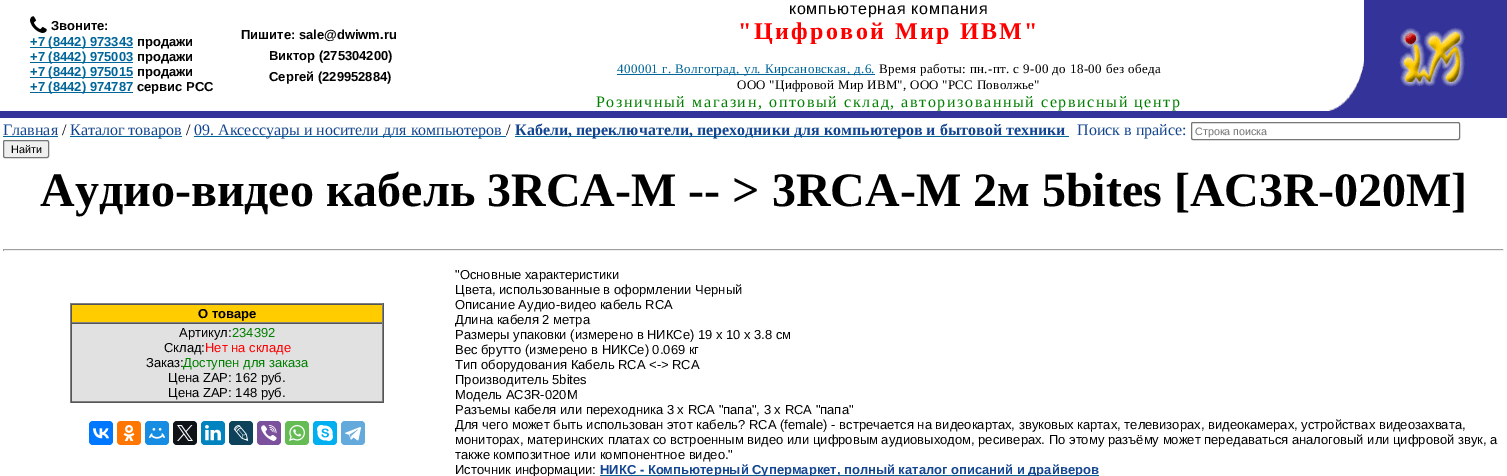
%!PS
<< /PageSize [1507 476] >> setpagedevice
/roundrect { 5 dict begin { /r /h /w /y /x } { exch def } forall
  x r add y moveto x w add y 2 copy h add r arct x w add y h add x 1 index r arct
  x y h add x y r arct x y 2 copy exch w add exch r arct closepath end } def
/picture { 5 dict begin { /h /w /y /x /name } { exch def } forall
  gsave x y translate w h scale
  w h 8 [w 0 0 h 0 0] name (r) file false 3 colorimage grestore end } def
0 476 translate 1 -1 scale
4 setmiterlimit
1 setgray
0 0 1507 476 rectfill
(img1.rgb) 30 16 17 17 picture
/LiberationSans-Bold [13 0 0 -13 0 0] selectfont
0 setgray
51 30 moveto (Звоните:) show
0 0.4 0.6 setrgbcolor
30 47 103 1 rectfill
30 46 moveto (+7 \(8442\) 973343) show
0 setgray
137 46 moveto (продажи) show
0 0.4 0.6 setrgbcolor
30 62 103 1 rectfill
30 61 moveto (+7 \(8442\) 975003) show
0 setgray
137 61 moveto (продажи) show
0 0.4 0.6 setrgbcolor
30 77 103 1 rectfill
30 76 moveto (+7 \(8442\) 975015) show
0 setgray
137 76 moveto (продажи) show
0 0.4 0.6 setrgbcolor
30 92 103 1 rectfill
30 91 moveto (+7 \(8442\) 974787) show
0 setgray
137 91 moveto (сервис РСС) show
241 39 moveto (Пишите: sale@dwiwm.ru) show
269 60 moveto (Виктор \(275304200\)) show
269 81 moveto (Сергей \(229952884\)) show
/LiberationSans-Regular [16 0 0 -16 0 0] selectfont
789 14 moveto 0.8 0 (компьютерная компания) ashow
/LiberationSerif-Bold [24 0 0 -24 0 0] selectfont
1 0 0 setrgbcolor
738 39 moveto 2.4 0 ("Цифровой Мир ИВМ") ashow
0 0.4 0.6 setrgbcolor
617 74 258 1 rectfill
/LiberationSerif-Regular [13 0 0 -13 0 0] selectfont
617 73 moveto 0.4 0 (400001 г. Волгоград, ул. Кирсановская, д.6.) ashow
0 setgray
879 73 moveto 0.4 0 (Время работы: пн.-пт. с 9-00 до 18-00 без обеда) ashow
737 89 moveto 0.25 0 (ООО "Цифровой Мир ИВМ", ООО "РСС Поволжье") ashow
/LiberationSerif-Regular [16 0 0 -16 0 0] selectfont
0 0.502 0 setrgbcolor
596 107 moveto 1.6 0 (Розничный магазин, оптовый склад, авторизованный сервисный центр) ashow
(img2.rgb) 1329 61 35 50 picture
0.2 0.2 0.6 setrgbcolor
1364 0 143 118 rectfill
(img3.rgb) 1399 27 66 60 picture
0 111 1364 7 rectfill
0.075 0.271 0.565 setrgbcolor
3 135 moveto (Главная) show
0 0.4 0.6 setrgbcolor
3 136 55 1 rectfill
0 setgray
62 135 moveto (/) show
0 0.4 0.6 setrgbcolor
70 136 112 1 rectfill
0.075 0.271 0.565 setrgbcolor
70 135 moveto (Каталог товаров) show
0 setgray
186 135 moveto (/) show
0 0.4 0.6 setrgbcolor
194 136 312 1 rectfill
0.075 0.271 0.565 setrgbcolor
194 135 moveto (09. Аксессуары и носители для компьютеров) show
0 setgray
506 135 moveto (/) show
0 0.4 0.6 setrgbcolor
515 136 554 1 rectfill
/LiberationSerif-Bold [16 0 0 -16 0 0] selectfont
0.075 0.271 0.565 setrgbcolor
515 135 moveto (Кабели, переключатели, переходники для компьютеров и бытовой техники) show
/LiberationSerif-Regular [16 0 0 -16 0 0] selectfont
1077 135 moveto (Поиск в прайсе:) show
0.463 setgray
1191.5 122.5 268 17 1.5 roundrect stroke
/LiberationSans-Regular [10.75 0 0 -10.75 0 0] selectfont
0.459 setgray
1195 135 moveto (Строка поиска) show
0.937 setgray
3.5 140.5 45 17 1.5 roundrect gsave fill grestore
0.463 setgray
stroke
0 setgray
11 153 moveto (Найти) show
/LiberationSerif-Bold [48 0 0 -48 0 0] selectfont
40 206 moveto (Аудио-видео кабель 3RCA-M -- > 3RCA-M 2м 5bites [AC3R-020M]) show
0.624 setgray
3 249 1501 1 rectfill
0.933 setgray
1503 249 1 2 rectfill
3 250 1501 1 rectfill
0.624 setgray
3 249 1 2 rectfill
0.502 setgray
70 303 314 1 rectfill
0.333 setgray
383 303 1 100 rectfill
70 402 314 1 rectfill
0.502 setgray
70 303 1 100 rectfill
1 0.8 0 setrgbcolor
72 305 310 17 rectfill
0.333 setgray
71 304 312 1 rectfill
0.502 setgray
382 304 1 19 rectfill
71 322 312 1 rectfill
0.333 setgray
71 304 1 19 rectfill
/LiberationSans-Bold [13 0 0 -13 0 0] selectfont
0 setgray
198 318 moveto (О товаре) show
0.882 setgray
72 324 310 77 rectfill
0.333 setgray
71 323 312 1 rectfill
0.502 setgray
382 323 1 79 rectfill
71 401 312 1 rectfill
0.333 setgray
71 323 1 79 rectfill
/LiberationSans-Regular [13 0 0 -13 0 0] selectfont
0 setgray
179 337 moveto (Артикул:) show
0 0.502 0 setrgbcolor
232 337 moveto (234392) show
0 setgray
164 352 moveto (Склад:) show
1 0 0 setrgbcolor
205 352 moveto (Нет на складе) show
0 setgray
146 367 moveto (Заказ:) show
0 0.502 0 setrgbcolor
183 367 moveto (Доступен для заказа) show
0 setgray
168 382 moveto (Цена ZAP: 162 руб.) show
168 397 moveto (Цена ZAP: 148 руб.) show
0 0.467 1 setrgbcolor
89 421 24 24 4 roundrect fill
(img4.rgb) 93 428 16 11 picture
1 0.467 0 setrgbcolor
117 421 24 24 4 roundrect fill
(img5.rgb) 123 425 12 16 picture
0.086 0.553 0.886 setrgbcolor
145 421 24 24 4 roundrect fill
(img6.rgb) 149 428 16 11 picture
0.059 0.078 0.098 setrgbcolor
173 421 24 24 4 roundrect fill
(img7.rgb) 177 425 16 16 picture
0 0.514 0.745 setrgbcolor
201 421 24 24 4 roundrect fill
(img8.rgb) 205 425 16 16 picture
0.051 0.259 0.353 setrgbcolor
229 421 24 24 4 roundrect fill
(img9.rgb) 234 425 15 16 picture
0.482 0.318 0.616 setrgbcolor
257 421 24 24 4 roundrect fill
(img10.rgb) 261 425 16 16 picture
0.396 0.737 0.329 setrgbcolor
285 421 24 24 4 roundrect fill
(img11.rgb) 289 425 16 16 picture
0 0.686 0.941 setrgbcolor
313 421 24 24 4 roundrect fill
(img12.rgb) 317 425 16 16 picture
0.392 0.663 0.863 setrgbcolor
341 421 24 24 4 roundrect fill
(img13.rgb) 345 427 16 14 picture
0 setgray
455 279 moveto ("Основные характеристики) show
455 294 moveto (Цвета, использованные в оформлении Черный) show
455 309 moveto (Описание Аудио-видео кабель RCA) show
455 324 moveto (Длина кабеля 2 метра) show
455 339 moveto (Размеры упаковки \(измерено в НИКСе\) 19 x 10 x 3.8 см) show
455 354 moveto (Вес брутто \(измерено в НИКСе\) 0.069 кг) show
455 369 moveto (Тип оборудования Кабель RCA <-> RCA) show
455 384 moveto (Производитель 5bites) show
455 399 moveto (Модель AC3R-020M) show
455 414 moveto (Разъемы кабеля или переходника 3 x RCA "папа", 3 x RCA "папа") show
455 429 moveto (Для чего может быть использован этот кабель? RCA \(female\) - встречается на видеокартах, звуковых картах, телевизорах, видеокамерах, устройствах видеозахвата,) show
455 444 moveto (мониторах, материнских платах со встроенным видео или цифровым аудиовыходом, ресиверах. По этому разъёму может передаваться аналоговый или цифровой звук, а) show
455 459 moveto (также композитное или компонентное видео.") show
455 474 moveto (Источник информации:) show
0 0.4 0.6 setrgbcolor
600 475 499 1 rectfill
/LiberationSans-Bold [13 0 0 -13 0 0] selectfont
0.075 0.271 0.565 setrgbcolor
600 474 moveto (НИКС - Компьютерный Cупермаркет, полный каталог описаний и драйверов) show
showpage
